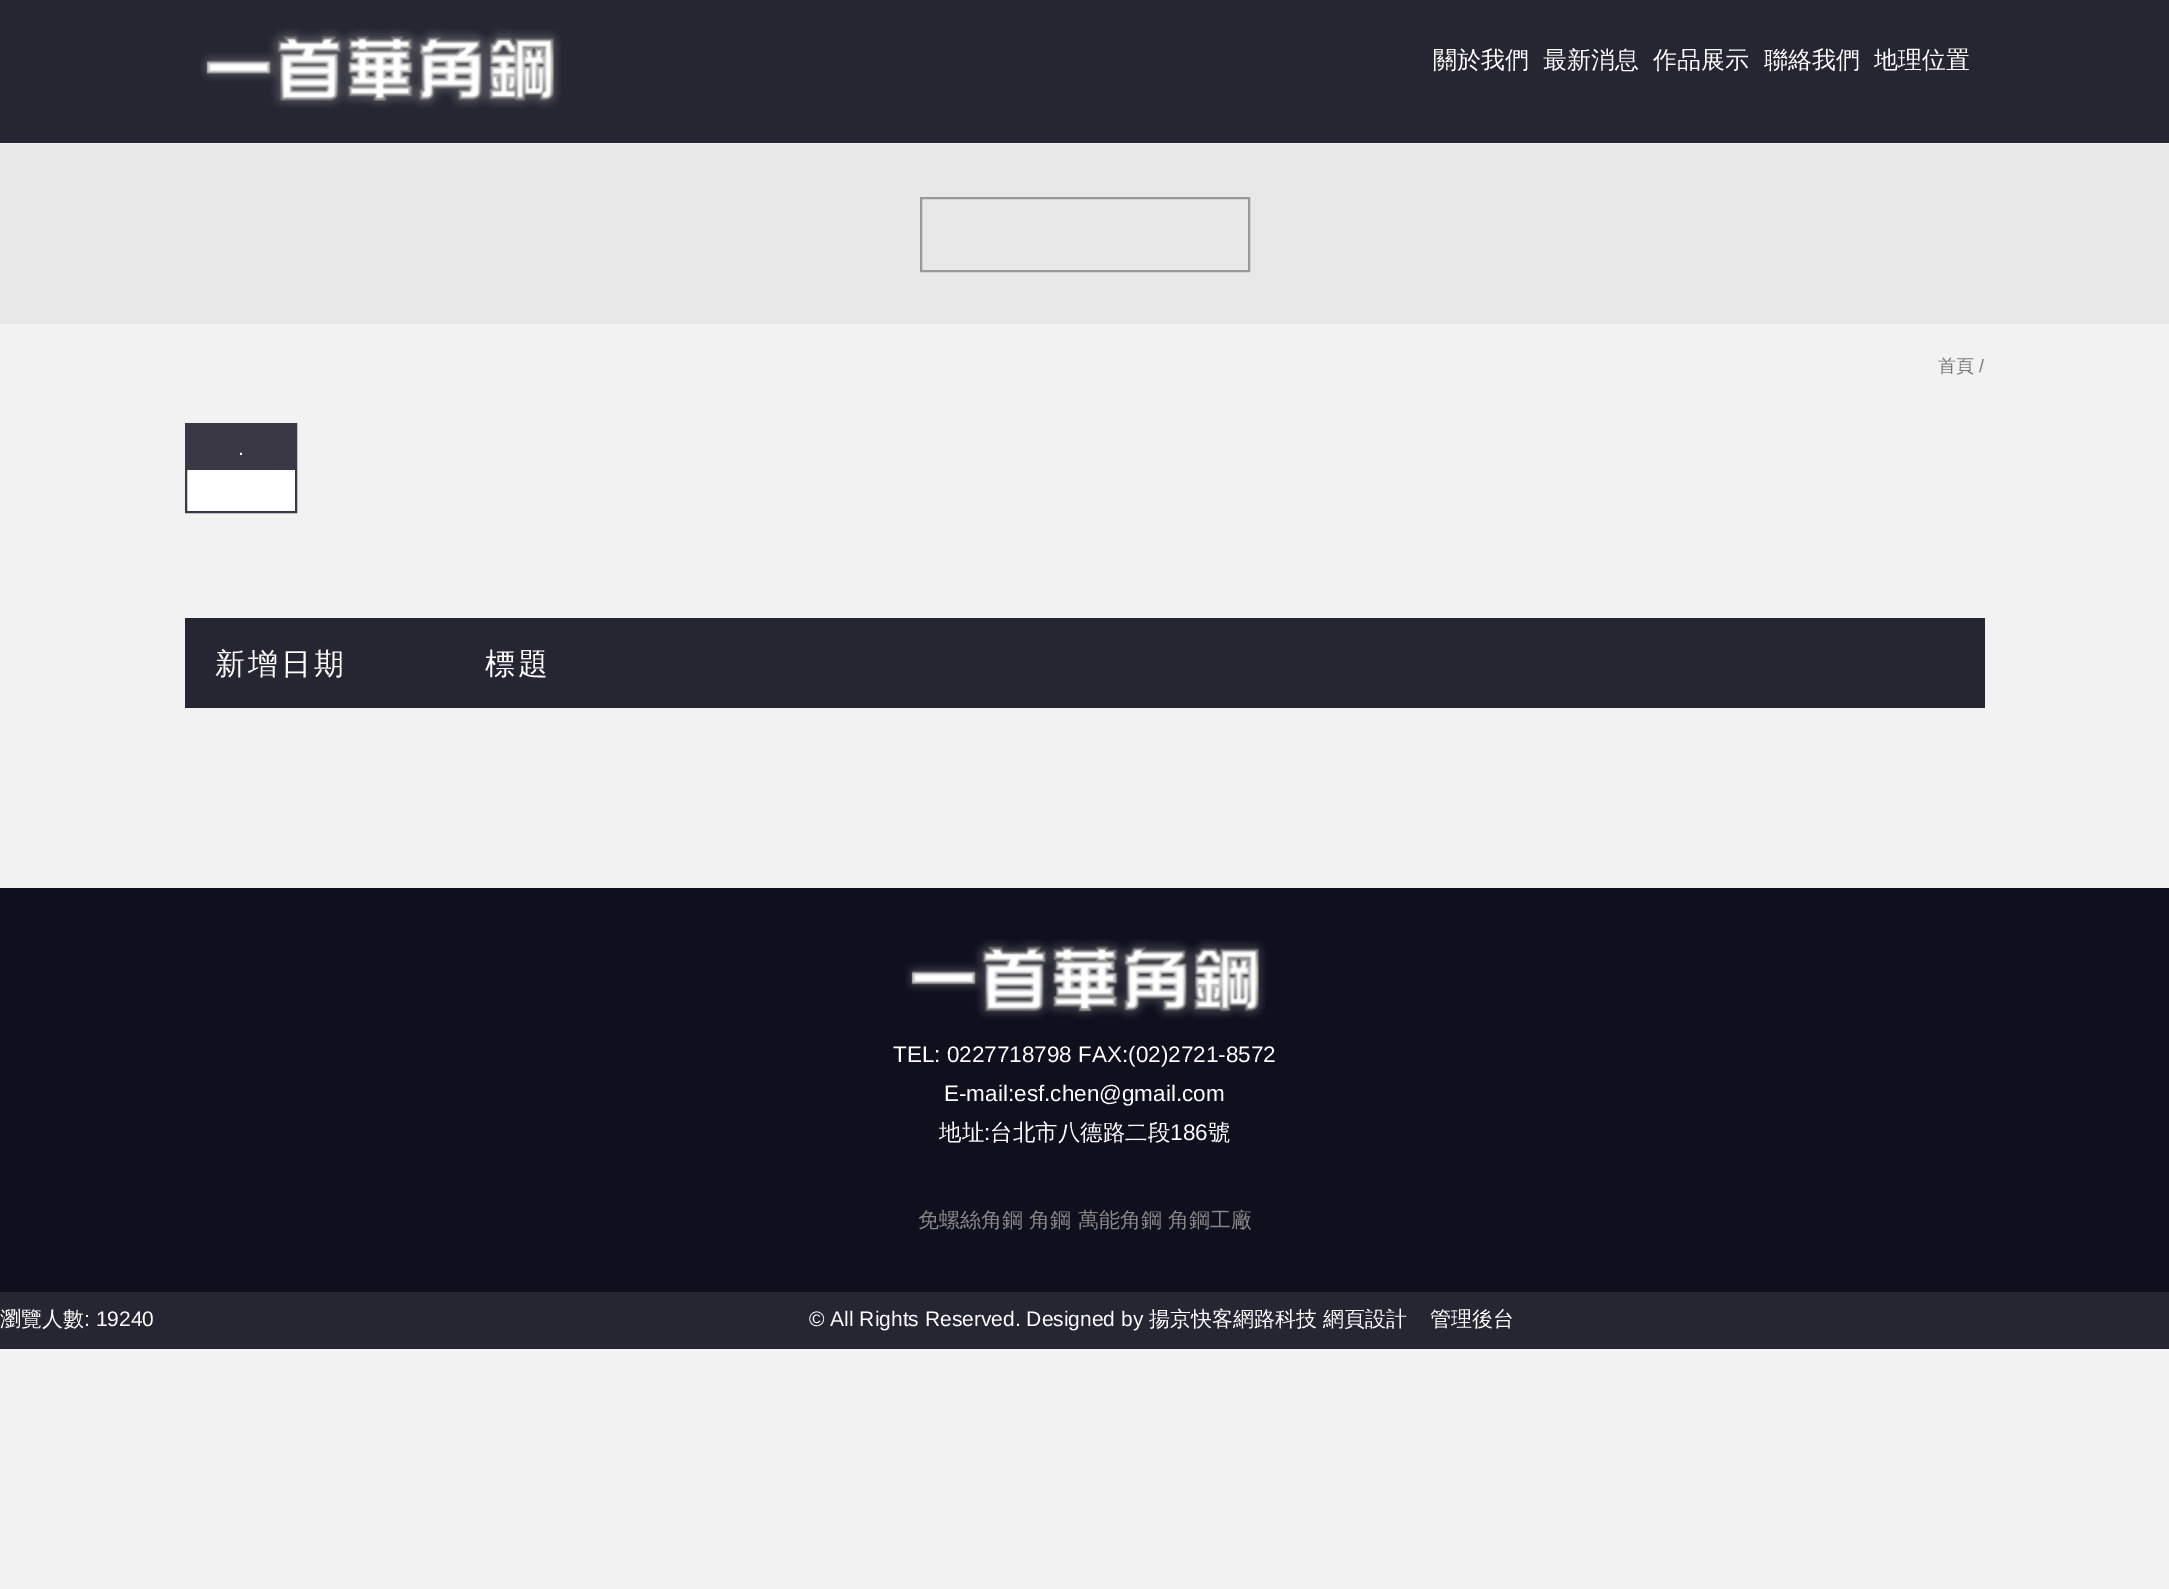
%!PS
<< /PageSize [2169 1589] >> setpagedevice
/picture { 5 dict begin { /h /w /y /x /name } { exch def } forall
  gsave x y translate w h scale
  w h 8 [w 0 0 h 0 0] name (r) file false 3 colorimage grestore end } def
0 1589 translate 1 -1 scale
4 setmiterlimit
0.949 setgray
0 0 2169 1589 rectfill
0.149 0.149 0.2 setrgbcolor
0 0 2169 143 rectfill
(img1.rgb) 200 28 361 80 picture
/WenQuanYiZenHei-Medium [24 0 0 -24 0 0] selectfont
1 setgray
1433 68 moveto (關於我們) show
1543 68 moveto (最新消息) show
1653 68 moveto (作品展示) show
1764 68 moveto (聯絡我們) show
1874 68 moveto (地理位置) show
0.91 setgray
0 144 2169 180 rectfill
0.6 setgray
2 setlinewidth
921 198 328 73 rectstroke
/WenQuanYiZenHei-Medium [18 0 0 -18 0 0] selectfont
0.467 setgray
1938 372 moveto (首頁) show
/LiberationSans-Regular [18 0 0 -18 0 0] selectfont
1979 372 moveto (/) show
1 setgray
187 470 108 41 rectfill
0.227 0.22 0.271 setrgbcolor
186 424 110 88 rectstroke
187 425 108 45 rectfill
/LiberationSans-Regular [21 0 0 -21 0 0] selectfont
1 setgray
238 455 moveto (.) show
0.149 0.149 0.2 setrgbcolor
185 618 1800 90 rectfill
/WenQuanYiZenHei-Medium [30 0 0 -30 0 0] selectfont
1 setgray
215 674 moveto 3 0 (新增日期) ashow
485 674 moveto 3 0 (標題) ashow
0.059 0.059 0.118 setrgbcolor
0 888 2169 404 rectfill
(img2.rgb) 905 939 361 80 picture
/LiberationSans-Regular [22.5 0 0 -22.5 0 0] selectfont
1 setgray
893 1062 moveto (TEL: 0227718798 FAX:\(02\)2721-8572) show
944 1101 moveto (E-mail:esf.chen@gmail.com) show
/WenQuanYiZenHei-Medium [22.5 0 0 -22.5 0 0] selectfont
939 1140 moveto (地址) show
/LiberationSans-Regular [22.5 0 0 -22.5 0 0] selectfont
984 1140 moveto (:) show
/WenQuanYiZenHei-Medium [22.5 0 0 -22.5 0 0] selectfont
990 1140 moveto (台北市八德路二段) show
/LiberationSans-Regular [22.5 0 0 -22.5 0 0] selectfont
1170 1140 moveto (186) show
/WenQuanYiZenHei-Medium [22.5 0 0 -22.5 0 0] selectfont
1208 1140 moveto (號) show
/WenQuanYiZenHei-Medium [21 0 0 -21 0 0] selectfont
0.529 setgray
918 1227 moveto (免螺絲角鋼 角鋼 萬能角鋼 角鋼工廠) show
0.149 0.149 0.2 setrgbcolor
0 1292 2169 57 rectfill
1 setgray
0 1326 moveto (瀏覽人數) show
/LiberationSans-Regular [21 0 0 -21 0 0] selectfont
84 1326 moveto (: 19240) show
809 1326 moveto (© All Rights Reserved. Designed by) show
/WenQuanYiZenHei-Medium [21 0 0 -21 0 0] selectfont
1149 1326 moveto (揚京快客網路科技) show
1323 1326 moveto (網頁設計) show
1430 1326 moveto (管理後台) show
showpage
